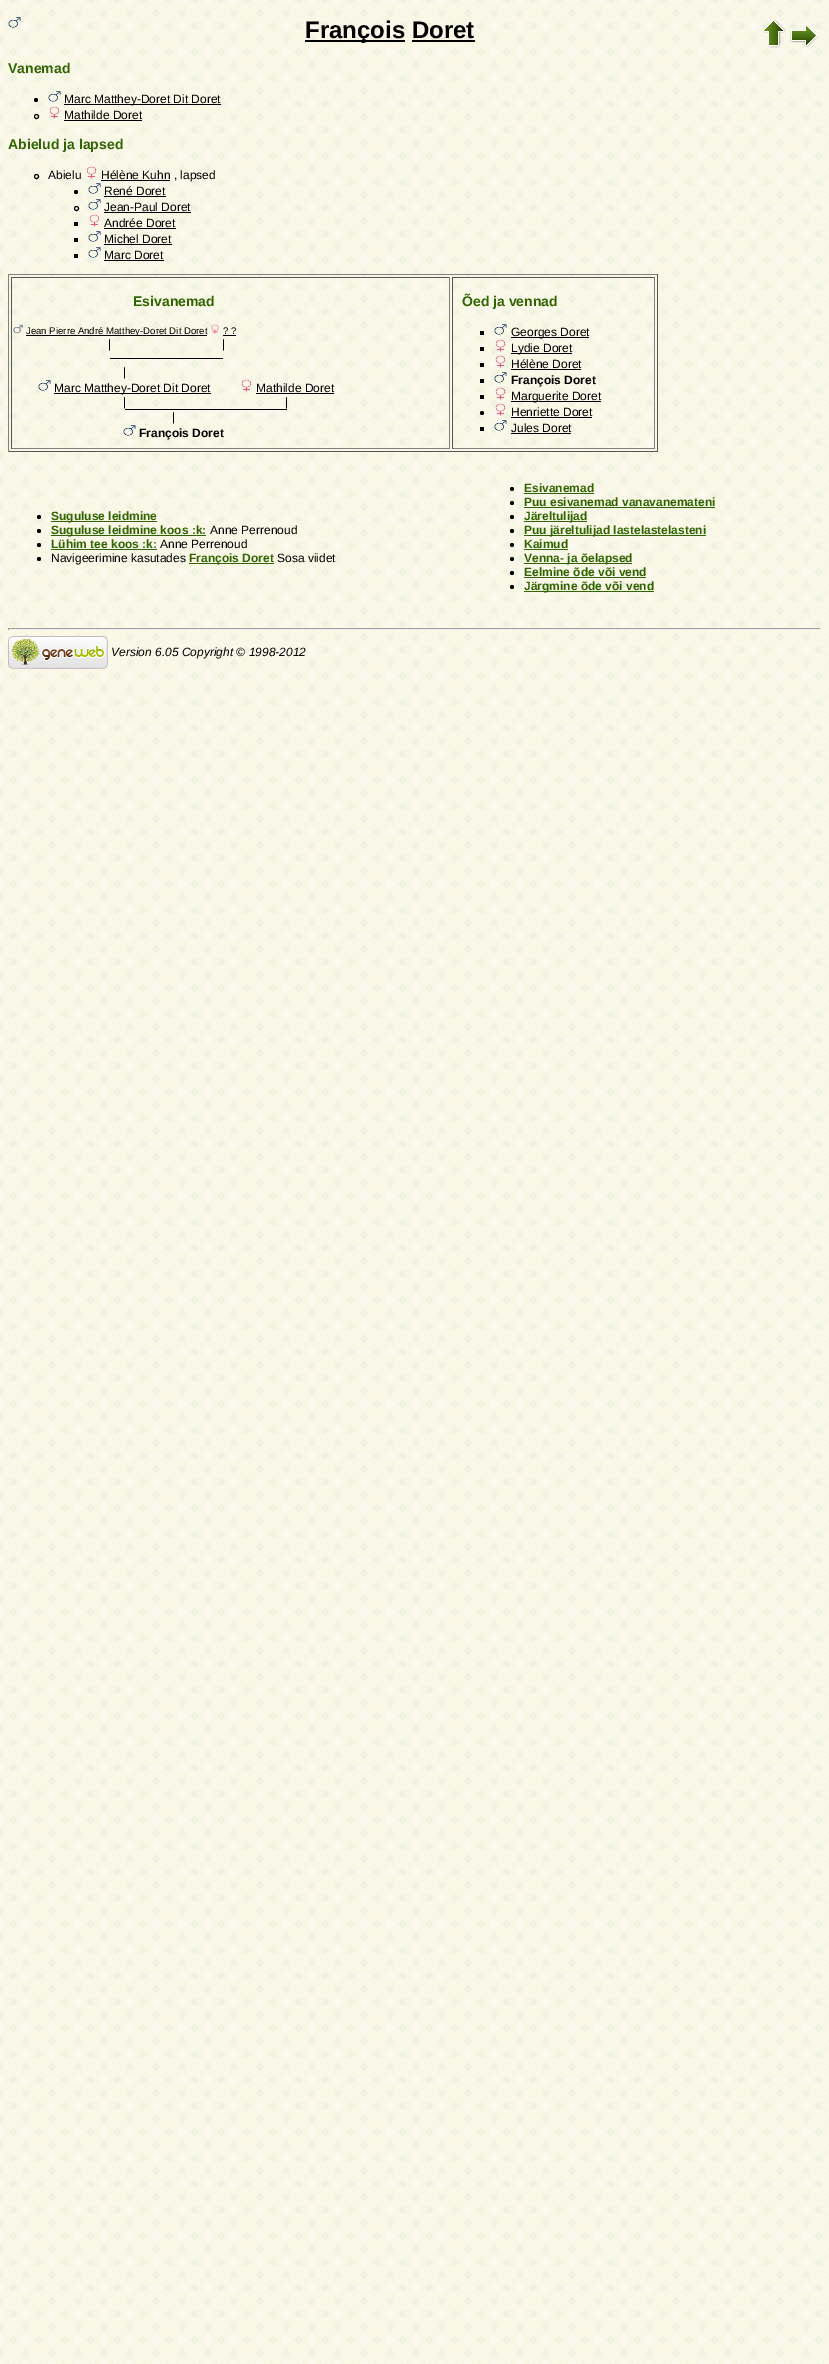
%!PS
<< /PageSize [829 2364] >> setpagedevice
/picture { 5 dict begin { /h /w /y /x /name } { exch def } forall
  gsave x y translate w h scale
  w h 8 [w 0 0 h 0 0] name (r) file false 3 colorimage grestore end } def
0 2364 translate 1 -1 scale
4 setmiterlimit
1 setgray
0 0 829 2364 rectfill
(img1.rgb) 0 0 829 2364 picture
(img2.rgb) 8 17 13 11 picture
0 setgray
305 40 100 2 rectfill
/LiberationSans-Bold [24 0 0 -24 0 0] selectfont
305 38 moveto (François Doret) show
412 40 63 2 rectfill
(img3.rgb) 764 20 22 28 picture
(img4.rgb) 790 25 28 23 picture
/LiberationSans-Bold [14 0 0 -14 0 0] selectfont
0.184 0.392 0 setrgbcolor
8 73 moveto (Vanemad) show
0 setgray
newpath 36 100 2 0 360 arc closepath fill
(img5.rgb) 48 91 13 11 picture
64 104 157 1 rectfill
/LiberationSans-Regular [12 0 0 -12 0 0] selectfont
64 103 moveto (Marc Matthey-Doret Dit Doret) show
newpath 36.5 116.5 2 0 360 arc closepath stroke
(img6.rgb) 49 106 11 13 picture
64 119 moveto (Mathilde Doret) show
64 120 78 1 rectfill
/LiberationSans-Bold [14 0 0 -14 0 0] selectfont
0.184 0.392 0 setrgbcolor
8 149 moveto (Abielud ja lapsed) show
0 setgray
newpath 36.5 176.5 2 0 360 arc closepath stroke
/LiberationSans-Regular [12 0 0 -12 0 0] selectfont
48 179 moveto (Abielu) show
(img7.rgb) 86 166 11 13 picture
101 180 69 1 rectfill
101 179 moveto (Hélène Kuhn , lapsed) show
newpath 76 192 2 0 360 arc closepath fill
(img8.rgb) 88 183 13 11 picture
104 195 moveto (René Doret) show
104 196 62 1 rectfill
newpath 76.5 208.5 2 0 360 arc closepath stroke
(img9.rgb) 88 199 13 11 picture
104 211 moveto (Jean-Paul Doret) show
104 212 87 1 rectfill
74 222 4 4 rectfill
(img10.rgb) 89 214 11 13 picture
104 227 moveto (Andrée Doret) show
104 228 72 1 rectfill
74 238 4 4 rectfill
(img11.rgb) 88 231 13 11 picture
104 243 moveto (Michel Doret) show
104 244 68 1 rectfill
74 254 4 4 rectfill
(img12.rgb) 88 247 13 11 picture
104 259 moveto (Marc Doret) show
104 260 60 1 rectfill
0.502 setgray
8 274 650 1 rectfill
0.333 setgray
657 274 1 178 rectfill
8 451 650 1 rectfill
0.502 setgray
8 274 1 178 rectfill
0.333 setgray
11 277 439 1 rectfill
0.502 setgray
449 277 1 172 rectfill
11 448 439 1 rectfill
0.333 setgray
11 277 1 172 rectfill
/LiberationSans-Bold [14 0 0 -14 0 0] selectfont
0.184 0.392 0 setrgbcolor
133 306 moveto (Esivanemad) show
(img13.rgb) 13 324 10 10 picture
0 setgray
26 335 181 1 rectfill
/LiberationSans-Regular [9.6 0 0 -9.6 0 0] selectfont
26 334 moveto (Jean Pierre André Matthey-Doret Dit Doret) show
(img14.rgb) 211 324 9 10 picture
223 334 moveto (? ?) show
223 335 13 1 rectfill
/LiberationSans-Regular [12 0 0 -12 0 0] selectfont
108 348 moveto (|) show
222 348 moveto (|) show
110 358 113 1 rectfill
123 376 moveto (|) show
(img15.rgb) 38 380 13 11 picture
54 393 157 1 rectfill
54 392 moveto (Marc Matthey-Doret Dit Doret) show
(img16.rgb) 241 379 11 13 picture
256 392 moveto (Mathilde Doret) show
256 393 78 1 rectfill
123 406 moveto (|) show
285 406 moveto (|) show
125 409 162 1 rectfill
172 421 moveto (|) show
(img17.rgb) 123 425 13 11 picture
/LiberationSans-Bold [12 0 0 -12 0 0] selectfont
139 437 moveto (François Doret) show
0.333 setgray
452 277 203 1 rectfill
0.502 setgray
654 277 1 172 rectfill
452 448 203 1 rectfill
0.333 setgray
452 277 1 172 rectfill
/LiberationSans-Bold [14 0 0 -14 0 0] selectfont
0.184 0.392 0 setrgbcolor
462 306 moveto (Õed ja vennad) show
0 setgray
480 331 4 4 rectfill
(img18.rgb) 494 324 13 11 picture
511 337 78 1 rectfill
/LiberationSans-Regular [12 0 0 -12 0 0] selectfont
511 336 moveto (Georges Doret) show
480 347 4 4 rectfill
(img19.rgb) 495 339 11 13 picture
511 353 61 1 rectfill
511 352 moveto (Lydie Doret) show
480 363 4 4 rectfill
(img20.rgb) 495 355 11 13 picture
511 368 moveto (Hélène Doret) show
511 369 70 1 rectfill
480 379 4 4 rectfill
(img21.rgb) 494 372 13 11 picture
/LiberationSans-Bold [12 0 0 -12 0 0] selectfont
511 384 moveto (François Doret) show
480 395 4 4 rectfill
(img22.rgb) 495 387 11 13 picture
511 401 90 1 rectfill
/LiberationSans-Regular [12 0 0 -12 0 0] selectfont
511 400 moveto (Marguerite Doret) show
newpath 482 413 2 0 360 arc closepath fill
(img23.rgb) 495 403 11 13 picture
511 416 moveto (Henriette Doret) show
511 417 81 1 rectfill
480 427 4 4 rectfill
(img24.rgb) 494 420 13 11 picture
511 432 moveto (Jules Doret) show
511 433 60 1 rectfill
newpath 39 517 2 0 360 arc closepath fill
0.184 0.392 0 setrgbcolor
51 521 106 1 rectfill
/LiberationSans-Bold [12 0 0 -12 0 0] selectfont
51 520 moveto (Suguluse leidmine) show
0 setgray
newpath 39 531 2 0 360 arc closepath fill
0.184 0.392 0 setrgbcolor
51 535 155 1 rectfill
51 534 moveto (Suguluse leidmine koos :k:) show
/LiberationSans-Regular [12 0 0 -12 0 0] selectfont
0 setgray
210 534 moveto (Anne Perrenoud) show
newpath 39 545 2 0 360 arc closepath fill
/LiberationSans-Bold [12 0 0 -12 0 0] selectfont
0.184 0.392 0 setrgbcolor
51 548 moveto (Lühim tee koos :k:) show
51 549 106 1 rectfill
/LiberationSans-Regular [12 0 0 -12 0 0] selectfont
0 setgray
160 548 moveto (Anne Perrenoud) show
newpath 39 559 2 0 360 arc closepath fill
51 562 moveto (Navigeerimine kasutades) show
0.184 0.392 0 setrgbcolor
189 563 85 1 rectfill
/LiberationSans-Bold [12 0 0 -12 0 0] selectfont
189 562 moveto (François Doret) show
/LiberationSans-Regular [12 0 0 -12 0 0] selectfont
0 setgray
277 562 moveto (Sosa viidet) show
newpath 512 489 2 0 360 arc closepath fill
/LiberationSans-Bold [12 0 0 -12 0 0] selectfont
0.184 0.392 0 setrgbcolor
524 492 moveto (Esivanemad) show
524 493 70 1 rectfill
0 setgray
newpath 512 503 2 0 360 arc closepath fill
0.184 0.392 0 setrgbcolor
524 506 moveto (Puu esivanemad vanavanemateni) show
524 507 191 1 rectfill
0 setgray
newpath 512 517 2 0 360 arc closepath fill
0.184 0.392 0 setrgbcolor
524 521 63 1 rectfill
524 520 moveto (Järeltulijad) show
0 setgray
newpath 512 531 2 0 360 arc closepath fill
0.184 0.392 0 setrgbcolor
524 535 182 1 rectfill
524 534 moveto (Puu järeltulijad lastelastelasteni) show
0 setgray
newpath 512 545 2 0 360 arc closepath fill
0.184 0.392 0 setrgbcolor
524 548 moveto (Kaimud) show
524 549 44 1 rectfill
0 setgray
newpath 512 559 2 0 360 arc closepath fill
0.184 0.392 0 setrgbcolor
524 563 108 1 rectfill
524 562 moveto (Venna- ja õelapsed) show
0 setgray
newpath 512 573 2 0 360 arc closepath fill
0.184 0.392 0 setrgbcolor
524 576 moveto (Eelmine õde või vend) show
524 577 122 1 rectfill
0 setgray
newpath 512 587 2 0 360 arc closepath fill
0.184 0.392 0 setrgbcolor
524 591 130 1 rectfill
524 590 moveto (Järgmine õde või vend) show
0.624 setgray
8 628 813 1 rectfill
0.933 setgray
820 628 1 2 rectfill
8 629 813 1 rectfill
0.624 setgray
8 628 1 2 rectfill
(img25.rgb) 8 636 100 33 picture
/LiberationSans-Italic [12 0 0 -12 0 0] selectfont
0 setgray
111 656 moveto (Version 6.05 Copyright © 1998-2012) show
showpage
